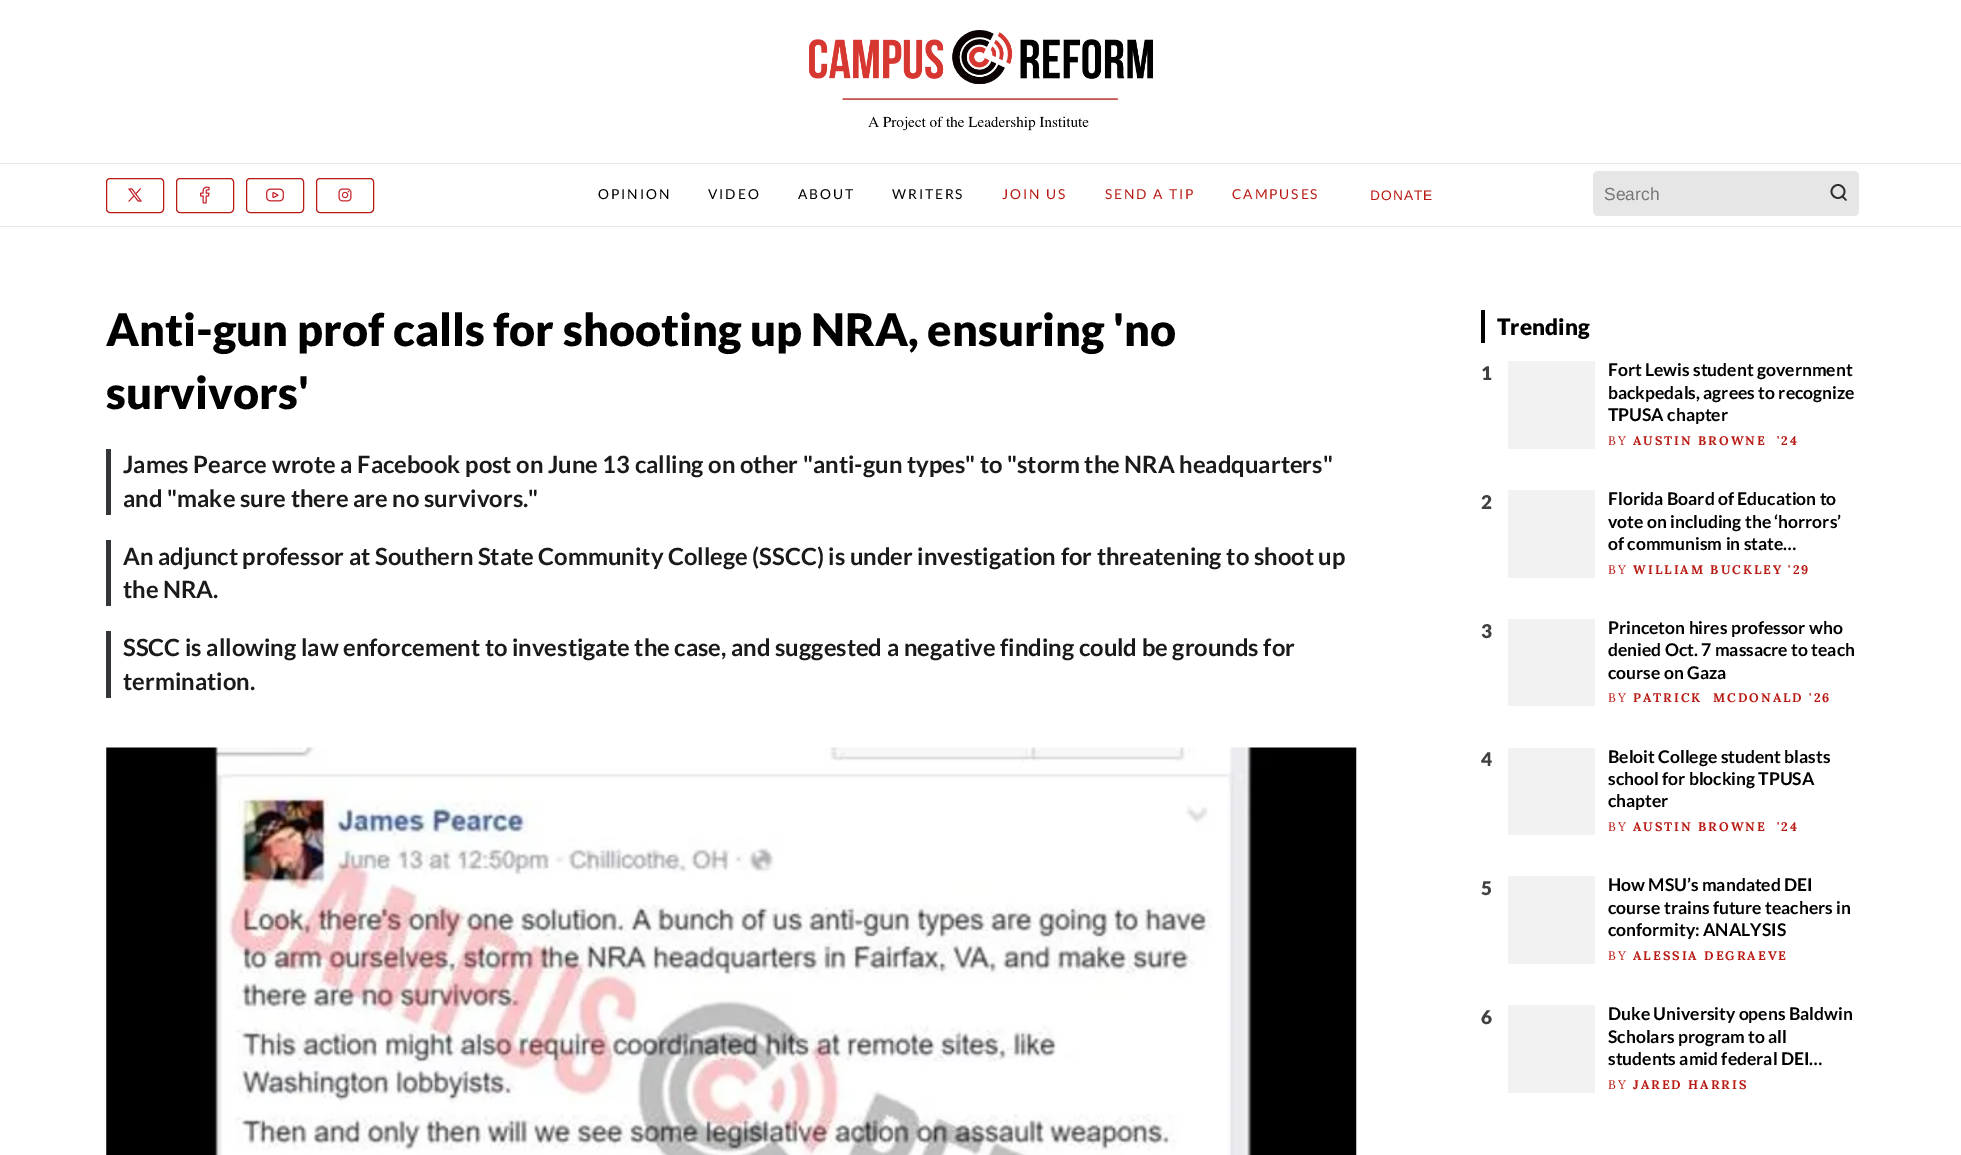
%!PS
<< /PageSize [1961 1155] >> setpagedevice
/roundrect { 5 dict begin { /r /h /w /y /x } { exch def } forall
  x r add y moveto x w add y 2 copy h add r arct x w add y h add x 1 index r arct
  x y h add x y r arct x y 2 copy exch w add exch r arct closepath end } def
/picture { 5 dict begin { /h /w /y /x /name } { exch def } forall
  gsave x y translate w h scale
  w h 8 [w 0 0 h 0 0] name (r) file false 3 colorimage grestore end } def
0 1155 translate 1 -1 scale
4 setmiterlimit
1 setgray
0 0 1961 1155 rectfill
(img1.rgb) 809 30 344 101 picture
0.902 setgray
0 163 1961 1 rectfill
0.725 0.102 0.078 setrgbcolor
106.5 178.5 57 34 3.5 roundrect stroke
(img2.rgb) 128 188 14 14 picture
176.5 178.5 57 34 3.5 roundrect stroke
(img3.rgb) 200 186 10 18 picture
246.5 178.5 57 34 3.5 roundrect stroke
(img4.rgb) 266 188 18 14 picture
316.5 178.5 57 34 3.5 roundrect stroke
(img5.rgb) 338 188 14 14 picture
/Lato-Regular [13.75 0 0 -13.75 0 0] selectfont
0 setgray
598 199 moveto 1.9 0 (OPINION) ashow
708 199 moveto 1.9 0 (VIDEO) ashow
798 199 moveto 1.9 0 (ABOUT) ashow
892 199 moveto 1.9 0 (WRITERS) ashow
0.725 0.102 0.078 setrgbcolor
1002 199 moveto 1.9 0 (JOIN US) ashow
1105 199 moveto 1.9 0 (SEND A TIP) ashow
1232 199 moveto 1.9 0 (CAMPUSES) ashow
/LiberationSans-Regular [13.75 0 0 -13.75 0 0] selectfont
1370 200 moveto 1 0 (DONATE) ashow
0.902 setgray
1593 171 266 45 5 roundrect fill
/LiberationSans-Regular [17.5 0 0 -17.5 0 0] selectfont
0.459 setgray
1604 200 moveto (Search) show
0.18 setgray
1.7 setlinewidth
newpath 1838 191.5 6.5 0 360 arc closepath stroke
1 setlinecap
1 setlinejoin
newpath 1846 200 moveto 1842.5 196.5 lineto stroke
0.902 setgray
0 226 1961 1 rectfill
/Lato-Black [45 0 0 -45 0 0] selectfont
0 setgray
106 346 moveto (Anti-gun prof calls for shooting up NRA, ensuring 'no) show
106 409 moveto (survivors') show
(img6.rgb) 106 747 1251 408 picture
1481 310 4 33 rectfill
/Lato-Black [22.5 0 0 -22.5 0 0] selectfont
1497 335 moveto (Trending) show
/Lato-Black [19 0 0 -19 0 0] selectfont
0.251 setgray
1481 380 moveto (1) show
0.949 setgray
1508 361 87 88 rectfill
/Lato-Bold [17.5 0 0 -17.5 0 0] selectfont
0 setgray
1608 376 moveto (Fort Lewis student government) show
1608 399 moveto (backpedals, agrees to recognize) show
1608 421 moveto (TPUSA chapter) show
/Lora-Regular [12.5 0 0 -12.5 0 0] selectfont
0.725 0.102 0.078 setrgbcolor
1608 445 moveto 2 0 (BY) ashow
/Lora-Bold [12.5 0 0 -12.5 0 0] selectfont
1633 445 moveto 2 0 (AUSTIN BROWNE) ashow
1777 445 moveto 2 0 ('24) ashow
/Lato-Black [19 0 0 -19 0 0] selectfont
0.251 setgray
1481 509 moveto (2) show
0.949 setgray
1508 490 87 88 rectfill
/Lato-Bold [17.5 0 0 -17.5 0 0] selectfont
0 setgray
1608 505 moveto (Florida Board of Education to) show
1608 528 moveto (vote on including the ‘horrors’) show
1608 550 moveto (of communism in state…) show
/Lora-Regular [12.5 0 0 -12.5 0 0] selectfont
0.725 0.102 0.078 setrgbcolor
1608 574 moveto 2 0 (BY) ashow
/Lora-Bold [12.5 0 0 -12.5 0 0] selectfont
1633 574 moveto 2 0 (WILLIAM BUCKLEY '29) ashow
/Lato-Black [19 0 0 -19 0 0] selectfont
0.251 setgray
1481 638 moveto (3) show
0.949 setgray
1508 619 87 87 rectfill
/Lato-Bold [17.5 0 0 -17.5 0 0] selectfont
0 setgray
1608 634 moveto (Princeton hires professor who) show
1608 656 moveto (denied Oct. 7 massacre to teach) show
1608 679 moveto (course on Gaza) show
/Lora-Regular [12.5 0 0 -12.5 0 0] selectfont
0.725 0.102 0.078 setrgbcolor
1608 702 moveto 2 0 (BY) ashow
/Lora-Bold [12.5 0 0 -12.5 0 0] selectfont
1633 702 moveto 2 0 (PATRICK) ashow
1713 702 moveto 2 0 (MCDONALD '26) ashow
/Lato-Black [19 0 0 -19 0 0] selectfont
0.251 setgray
1481 766 moveto (4) show
0.949 setgray
1508 748 87 87 rectfill
/Lato-Bold [17.5 0 0 -17.5 0 0] selectfont
0 setgray
1608 763 moveto (Beloit College student blasts) show
1608 785 moveto (school for blocking TPUSA) show
1608 807 moveto (chapter) show
/Lora-Regular [12.5 0 0 -12.5 0 0] selectfont
0.725 0.102 0.078 setrgbcolor
1608 831 moveto 2 0 (BY) ashow
/Lora-Bold [12.5 0 0 -12.5 0 0] selectfont
1633 831 moveto 2 0 (AUSTIN BROWNE) ashow
1777 831 moveto 2 0 ('24) ashow
/Lato-Black [19 0 0 -19 0 0] selectfont
0.251 setgray
1481 895 moveto (5) show
0.949 setgray
1508 876 87 88 rectfill
/Lato-Bold [17.5 0 0 -17.5 0 0] selectfont
0 setgray
1608 891 moveto (How MSU’s mandated DEI) show
1608 914 moveto (course trains future teachers in) show
1608 936 moveto (conformity: ANALYSIS) show
/Lora-Regular [12.5 0 0 -12.5 0 0] selectfont
0.725 0.102 0.078 setrgbcolor
1608 960 moveto 2 0 (BY) ashow
/Lora-Bold [12.5 0 0 -12.5 0 0] selectfont
1633 960 moveto 2 0 (ALESSIA DEGRAEVE) ashow
/Lato-Black [19 0 0 -19 0 0] selectfont
0.251 setgray
1481 1024 moveto (6) show
0.949 setgray
1508 1005 87 88 rectfill
/Lato-Bold [17.5 0 0 -17.5 0 0] selectfont
0 setgray
1608 1020 moveto (Duke University opens Baldwin) show
1608 1043 moveto (Scholars program to all) show
1608 1065 moveto (students amid federal DEI…) show
/Lora-Regular [12.5 0 0 -12.5 0 0] selectfont
0.725 0.102 0.078 setrgbcolor
1608 1089 moveto 2 0 (BY) ashow
/Lora-Bold [12.5 0 0 -12.5 0 0] selectfont
1633 1089 moveto 2 0 (JARED HARRIS) ashow
0.204 0.216 0.227 setrgbcolor
106 449 5 66 rectfill
/Lato-Bold [23.75 0 0 -23.75 0 0] selectfont
0.102 setgray
123 473 moveto (James Pearce wrote a Facebook post on June 13 calling on other "anti-gun types" to "storm the NRA headquarters") show
123 507 moveto (and "make sure there are no survivors.") show
0.204 0.216 0.227 setrgbcolor
106 540 5 66 rectfill
0.102 setgray
123 565 moveto (An adjunct professor at Southern State Community College \(SSCC\) is under investigation for threatening to shoot up) show
123 598 moveto (the NRA.) show
0.204 0.216 0.227 setrgbcolor
106 631 5 67 rectfill
0.102 setgray
123 656 moveto (SSCC is allowing law enforcement to investigate the case, and suggested a negative finding could be grounds for) show
123 690 moveto (termination.) show
showpage
